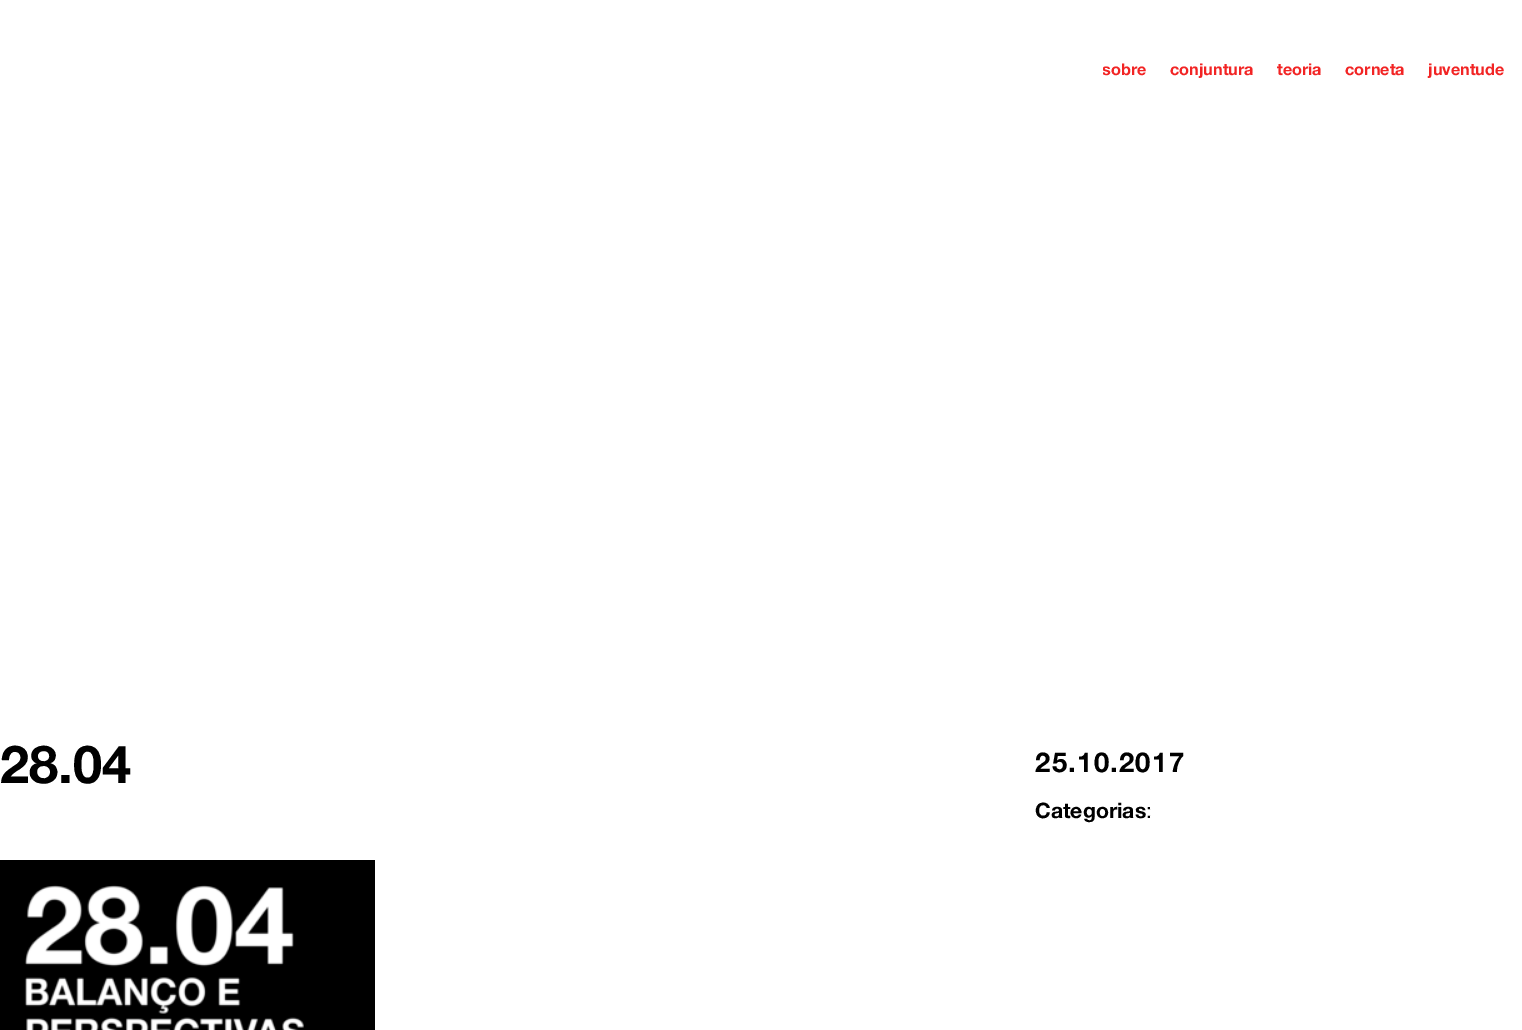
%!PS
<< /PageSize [1522 1030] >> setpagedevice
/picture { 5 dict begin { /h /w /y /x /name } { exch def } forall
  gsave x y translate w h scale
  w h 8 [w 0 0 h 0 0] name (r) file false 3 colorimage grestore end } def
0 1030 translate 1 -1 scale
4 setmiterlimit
1 setgray
0 0 1522 1030 rectfill
gsave
1103 60 43 24 rectclip
/HelveticaNeue-Bold [16.25 0 0 -16.25 0 0] selectfont
0.949 0.141 0.141 setrgbcolor
1102 75 moveto (sobre) show
grestore
/HelveticaNeue-Bold [16.25 0 0 -16.25 0 0] selectfont
0.949 0.141 0.141 setrgbcolor
1170 75 moveto (conjuntura) show
1277 75 moveto (teoria) show
1345 75 moveto (corneta) show
1428 75 moveto (juventude) show
/HelveticaNeue-Bold [52.5 0 0 -52.5 0 0] selectfont
0 setgray
0 783 moveto (28.04) show
/HelveticaNeue-Bold [27.5 0 0 -27.5 0 0] selectfont
1035 772 moveto 1.25 0 (25.10.2017) ashow
/HelveticaNeue-Bold [21.25 0 0 -21.25 0 0] selectfont
1035 818 moveto (Categorias) show
/HelveticaNeue-Regular [21.25 0 0 -21.25 0 0] selectfont
1146 818 moveto (:) show
(img1.rgb) 0 860 375 170 picture
showpage
